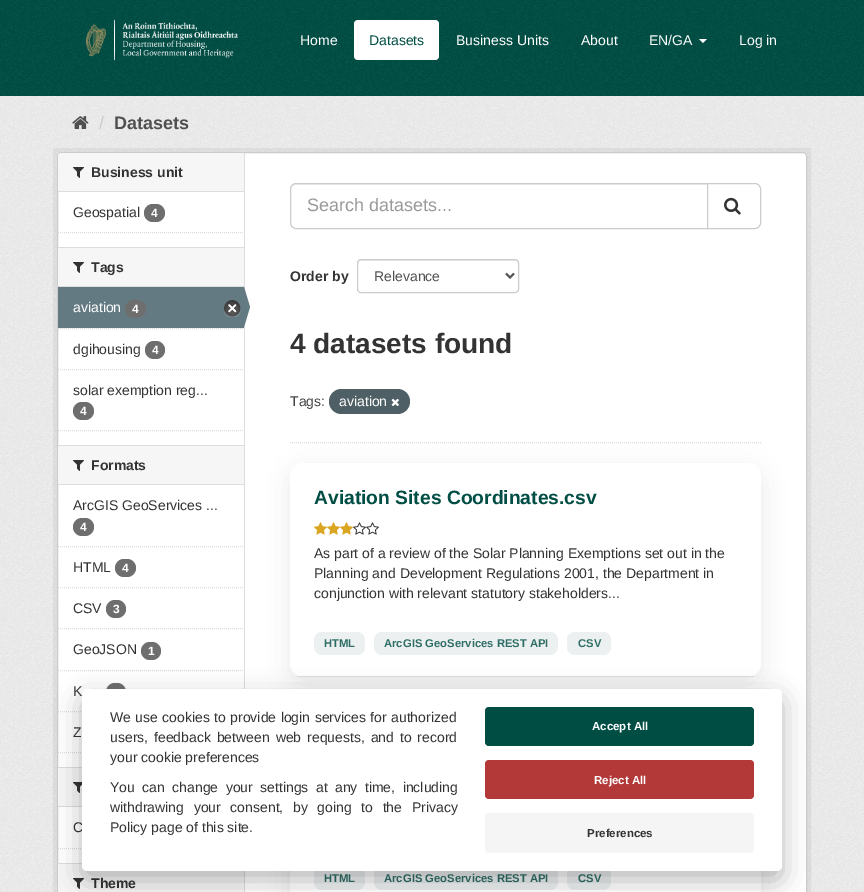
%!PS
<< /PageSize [864 892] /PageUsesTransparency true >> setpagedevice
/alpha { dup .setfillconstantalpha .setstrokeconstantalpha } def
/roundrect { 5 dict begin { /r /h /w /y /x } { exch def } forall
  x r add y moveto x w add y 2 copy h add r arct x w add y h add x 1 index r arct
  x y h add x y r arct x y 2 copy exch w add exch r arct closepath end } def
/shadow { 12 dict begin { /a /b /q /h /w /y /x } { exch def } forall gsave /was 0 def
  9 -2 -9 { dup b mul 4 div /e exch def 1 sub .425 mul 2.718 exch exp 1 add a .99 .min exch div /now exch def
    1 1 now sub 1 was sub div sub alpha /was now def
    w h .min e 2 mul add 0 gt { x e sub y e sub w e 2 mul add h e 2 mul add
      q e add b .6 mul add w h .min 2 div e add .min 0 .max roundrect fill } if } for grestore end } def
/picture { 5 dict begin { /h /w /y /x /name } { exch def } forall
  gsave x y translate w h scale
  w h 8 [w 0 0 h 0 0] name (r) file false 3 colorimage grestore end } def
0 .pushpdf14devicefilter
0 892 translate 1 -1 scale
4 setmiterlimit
0.933 setgray
0 0 864 892 rectfill
0 0.302 0.267 setrgbcolor
0 0 864 96 rectfill
(img1.rgb) 0 0 864 96 picture
(img2.rgb) 86 19 152 42 picture
/LiberationSans-Regular [14 0 0 -14 0 0] selectfont
1 setgray
300 45 moveto (Home) show
354 20 85 40 4 roundrect fill
0 0.302 0.267 setrgbcolor
369 45 moveto (Datasets) show
1 setgray
456 45 moveto (Business Units) show
581 45 moveto (About) show
649 45 moveto (EN/GA) show
newpath 699 39 moveto 707 39 lineto 703 43 lineto closepath fill
739 45 moveto (Log in) show
(img3.rgb) 0 96 864 796 picture
(img4.rgb) 72 116 17 13 picture
/LiberationSans-Regular [18 0 0 -18 0 0] selectfont
0.8 setgray
99 129 moveto (/) show
/LiberationSans-Bold [18 0 0 -18 0 0] selectfont
0.314 setgray
114 129 moveto (Datasets) show
0.05 alpha
0 setgray
4 setlinewidth
55 150 754 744 rectstroke
1 alpha
1 setgray
57.5 152.5 749 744 3.5 roundrect gsave fill grestore
0.8 setgray
1 setlinewidth
stroke
0.965 setgray
newpath 61 153 moveto 244 153 lineto 244 192 lineto 58 192 lineto 58 156 lineto 58 154.5 59.5 153 61 153 curveto closepath fill
0.867 setgray
58 191 186 1 rectfill
(img5.rgb) 73 167 11 11 picture
/LiberationSans-Bold [14 0 0 -14 0 0] selectfont
0.2 setgray
91 177 moveto (Business unit) show
/LiberationSans-Regular [14 0 0 -14 0 0] selectfont
73 217 moveto (Geospatial) show
0.431 setgray
144 204 21 18 9 roundrect fill
/LiberationSans-Bold [12 0 0 -12 0 0] selectfont
1 setgray
151 217 moveto (4) show
0.867 setgray
[1 1] 0 setdash
newpath 58 232.5 moveto 244 232.5 lineto stroke
0.965 setgray
58 248 186 38 rectfill
0.867 setgray
58 247 186 1 rectfill
58 286 186 1 rectfill
(img5.rgb) 73 262 11 11 picture
/LiberationSans-Bold [14 0 0 -14 0 0] selectfont
0.2 setgray
91 272 moveto (Tags) show
0.965 setgray
59 328 185 1 rectfill
0.867 setgray
newpath 58 328.5 moveto 244 328.5 lineto stroke
0.392 0.478 0.51 setrgbcolor
58 287 186 41 rectfill
/LiberationSans-Regular [14 0 0 -14 0 0] selectfont
1 setgray
73 312 moveto (aviation) show
0.431 setgray
125 300 21 18 9 roundrect fill
/LiberationSans-Bold [12 0 0 -12 0 0] selectfont
1 setgray
132 313 moveto (4) show
(img6.rgb) 224 300 17 17 picture
0.867 setgray
244 153 1 739 rectfill
0.392 0.478 0.51 setrgbcolor
newpath 244 327 moveto 244 287 lineto 250 307 lineto closepath fill
0.867 setgray
newpath 58 369.5 moveto 244 369.5 lineto stroke
/LiberationSans-Regular [14 0 0 -14 0 0] selectfont
0.2 setgray
73 354 moveto (dgihousing) show
0.431 setgray
145 341 20 18 9 roundrect fill
/LiberationSans-Bold [12 0 0 -12 0 0] selectfont
1 setgray
152 354 moveto (4) show
/LiberationSans-Regular [14 0 0 -14 0 0] selectfont
0.2 setgray
73 395 moveto (solar exemption reg...) show
0.431 setgray
73 402 21 18 9 roundrect fill
/LiberationSans-Bold [12 0 0 -12 0 0] selectfont
1 setgray
80 415 moveto (4) show
0.867 setgray
newpath 58 430.5 moveto 244 430.5 lineto stroke
0.965 setgray
58 446 186 38 rectfill
0.867 setgray
58 445 186 1 rectfill
58 484 186 1 rectfill
(img5.rgb) 73 460 11 11 picture
/LiberationSans-Bold [14 0 0 -14 0 0] selectfont
0.2 setgray
91 470 moveto (Formats) show
0.867 setgray
newpath 58 546.5 moveto 244 546.5 lineto stroke
/LiberationSans-Regular [14 0 0 -14 0 0] selectfont
0.2 setgray
73 510 moveto (ArcGIS GeoServices ...) show
0.431 setgray
73 518 21 18 9 roundrect fill
/LiberationSans-Bold [12 0 0 -12 0 0] selectfont
1 setgray
80 531 moveto (4) show
0.867 setgray
newpath 58 587.5 moveto 244 587.5 lineto stroke
/LiberationSans-Regular [14 0 0 -14 0 0] selectfont
0.2 setgray
73 572 moveto (HTML) show
0.431 setgray
115 559 21 18 9 roundrect fill
/LiberationSans-Bold [12 0 0 -12 0 0] selectfont
1 setgray
122 572 moveto (4) show
0.867 setgray
newpath 58 628.5 moveto 244 628.5 lineto stroke
/LiberationSans-Regular [14 0 0 -14 0 0] selectfont
0.2 setgray
73 613 moveto (CSV) show
0.431 setgray
106 600 20 18 9 roundrect fill
/LiberationSans-Bold [12 0 0 -12 0 0] selectfont
1 setgray
113 613 moveto (3) show
0.867 setgray
newpath 58 670.5 moveto 244 670.5 lineto stroke
/LiberationSans-Regular [14 0 0 -14 0 0] selectfont
0.2 setgray
73 654 moveto (GeoJSON) show
0.431 setgray
141 642 20 18 9 roundrect fill
/LiberationSans-Bold [12 0 0 -12 0 0] selectfont
1 setgray
148 655 moveto (1) show
0.867 setgray
newpath 58 711.5 moveto 244 711.5 lineto stroke
/LiberationSans-Regular [14 0 0 -14 0 0] selectfont
0.2 setgray
73 696 moveto (K) show
0.431 setgray
106 683 20 18 9 roundrect fill
0.2 setgray
73 737 moveto (Z) show
0.867 setgray
newpath 58 752.5 moveto 244 752.5 lineto stroke
0.965 setgray
58 768 24 38 rectfill
0.867 setgray
58 767 24 1 rectfill
58 806 24 1 rectfill
(img7.rgb) 73 782 9 11 picture
0.2 setgray
73 832 moveto (C) show
0.867 setgray
newpath 58 848.5 moveto 244 848.5 lineto stroke
0.965 setgray
58 864 186 28 rectfill
0.867 setgray
58 863 24 1 rectfill
(img5.rgb) 73 878 11 11 picture
/LiberationSans-Bold [14 0 0 -14 0 0] selectfont
0.2 setgray
91 888 moveto (Theme) show
0.867 setgray
newpath 290 442.5 moveto 761 442.5 lineto stroke
0.925 setgray
newpath 296 185 moveto 707 185 lineto 707 184 lineto 296 184 lineto 293 184 291 187 291 190 curveto 291 187 293 185 296 185 curveto closepath fill
0.8 setgray
[] 0 setdash
newpath 296 183.5 moveto 707.5 183.5 lineto 707.5 228.5 lineto 296 228.5 lineto 293 228.5 290.5 226 290.5 223 curveto 290.5 189 lineto 290.5 186 293 183.5 296 183.5 curveto closepath stroke
/LiberationSans-Regular [18 0 0 -18 0 0] selectfont
0.6 setgray
307 211 moveto (Search datasets...) show
1 setgray
newpath 707.5 183.5 moveto 755 183.5 lineto 758 183.5 760.5 186 760.5 189 curveto 760.5 223 lineto 760.5 226 758 228.5 755 228.5 curveto 707.5 228.5 lineto closepath gsave fill grestore
0.8 setgray
stroke
(img8.rgb) 724 197 17 18 picture
/LiberationSans-Bold [14 0 0 -14 0 0] selectfont
0.2 setgray
290 281 moveto (Order by) show
0.925 setgray
newpath 361 261 moveto 515 261 lineto 517 261 518 262 518 264 curveto 518 262 517 260 515 260 curveto 360 260 lineto 358 260 358 262 358 264 curveto 358 262 359 261 361 261 curveto closepath fill
0.8 setgray
357.5 259.5 161 33 3.5 roundrect stroke
0.333 setgray
2 setlinewidth
newpath 506 273.5 moveto 510 277.5 lineto 514 273.5 lineto stroke
/LiberationSans-Regular [14 0 0 -14 0 0] selectfont
0.314 setgray
374 281 moveto (Relevance) show
/LiberationSans-Bold [28 0 0 -28 0 0] selectfont
0.2 setgray
290 353 moveto (4 datasets found) show
/LiberationSans-Regular [14 0 0 -14 0 0] selectfont
0.267 setgray
290 406 moveto (Tags:) show
0.306 0.373 0.396 setrgbcolor
329 389 81 25 12.5 roundrect fill
1 setgray
339 406 moveto (aviation) show
(img9.rgb) 391 398 8 9 picture
0.584 0.616 0.647 setrgbcolor
290 471 471 214 14 12 0.2 shadow
1 setgray
290 463 471 214 14 roundrect fill
0.867 setgray
297 676 457 1 rectfill
/LiberationSans-Bold [19.25 0 0 -19.25 0 0] selectfont
0 0.302 0.267 setrgbcolor
314 504 moveto (Aviation Sites Coordinates.csv) show
(img10.rgb) 314 522 13 13 picture
(img10.rgb) 327 522 13 13 picture
(img10.rgb) 340 522 13 13 picture
(img11.rgb) 353 522 13 13 picture
(img11.rgb) 366 522 13 13 picture
/LiberationSans-Regular [14 0 0 -14 0 0] selectfont
0.2 setgray
314 558 moveto (As part of a review of the Solar Planning Exemptions set out in the) show
314 578 moveto (Planning and Development Regulations 2001, the Department in) show
314 598 moveto (conjunction with relevant statutory stakeholders...) show
0.925 0.941 0.945 setrgbcolor
314 632 51 23 8 roundrect fill
/LiberationSans-Bold [11.25 0 0 -11.25 0 0] selectfont
0.184 0.431 0.404 setrgbcolor
324 647 moveto (HTML) show
0.925 0.941 0.945 setrgbcolor
374 632 184 23 8 roundrect fill
0.184 0.431 0.404 setrgbcolor
384 647 moveto (ArcGIS GeoServices REST API) show
0.925 0.941 0.945 setrgbcolor
567 632 44 23 8 roundrect fill
0.184 0.431 0.404 setrgbcolor
578 647 moveto (CSV) show
0.584 0.616 0.647 setrgbcolor
290 706 471 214 14 12 0.2 shadow
1 setgray
290 871 471 21 rectfill
0.925 0.941 0.945 setrgbcolor
314 867 51 23 8 roundrect fill
0.184 0.431 0.404 setrgbcolor
324 882 moveto (HTML) show
0.925 0.941 0.945 setrgbcolor
374 867 184 23 8 roundrect fill
0.184 0.431 0.404 setrgbcolor
384 882 moveto (ArcGIS GeoServices REST API) show
0.925 0.941 0.945 setrgbcolor
567 867 44 23 8 roundrect fill
0.184 0.431 0.404 setrgbcolor
578 882 moveto (CSV) show
0.008 0.008 0.012 setrgbcolor
82 698 700 182 5 13 0.28 shadow
1 setgray
82 689 700 182 5 roundrect fill
/LiberationSans-Regular [14 0 0 -14 0 0] selectfont
0.2 setgray
110 722 moveto 0.5 0 32 (We use cookies to provide login services for authorized) widthshow
110 742 moveto 2 0 32 (users, feedback between web requests, and to record) widthshow
110 762 moveto (your cookie preferences) show
110 792 moveto 3.5 0 32 (You can change your settings at any time, including) widthshow
110 812 moveto 5.75 0 32 (withdrawing your consent, by going to the Privacy) widthshow
110 832 moveto (Policy page of this site.) show
0 0.302 0.267 setrgbcolor
485 707 269 39 4 roundrect fill
/LiberationSans-Bold [11.5 0 0 -11.5 0 0] selectfont
1 setgray
592 730 moveto (Accept All) show
0.702 0.224 0.224 setrgbcolor
485 760 269 39 4 roundrect fill
1 setgray
594 784 moveto (Reject All) show
0.961 setgray
485 813 269 40 4 roundrect fill
0.2 setgray
587 837 moveto (Preferences) show
.poppdf14devicefilter showpage
